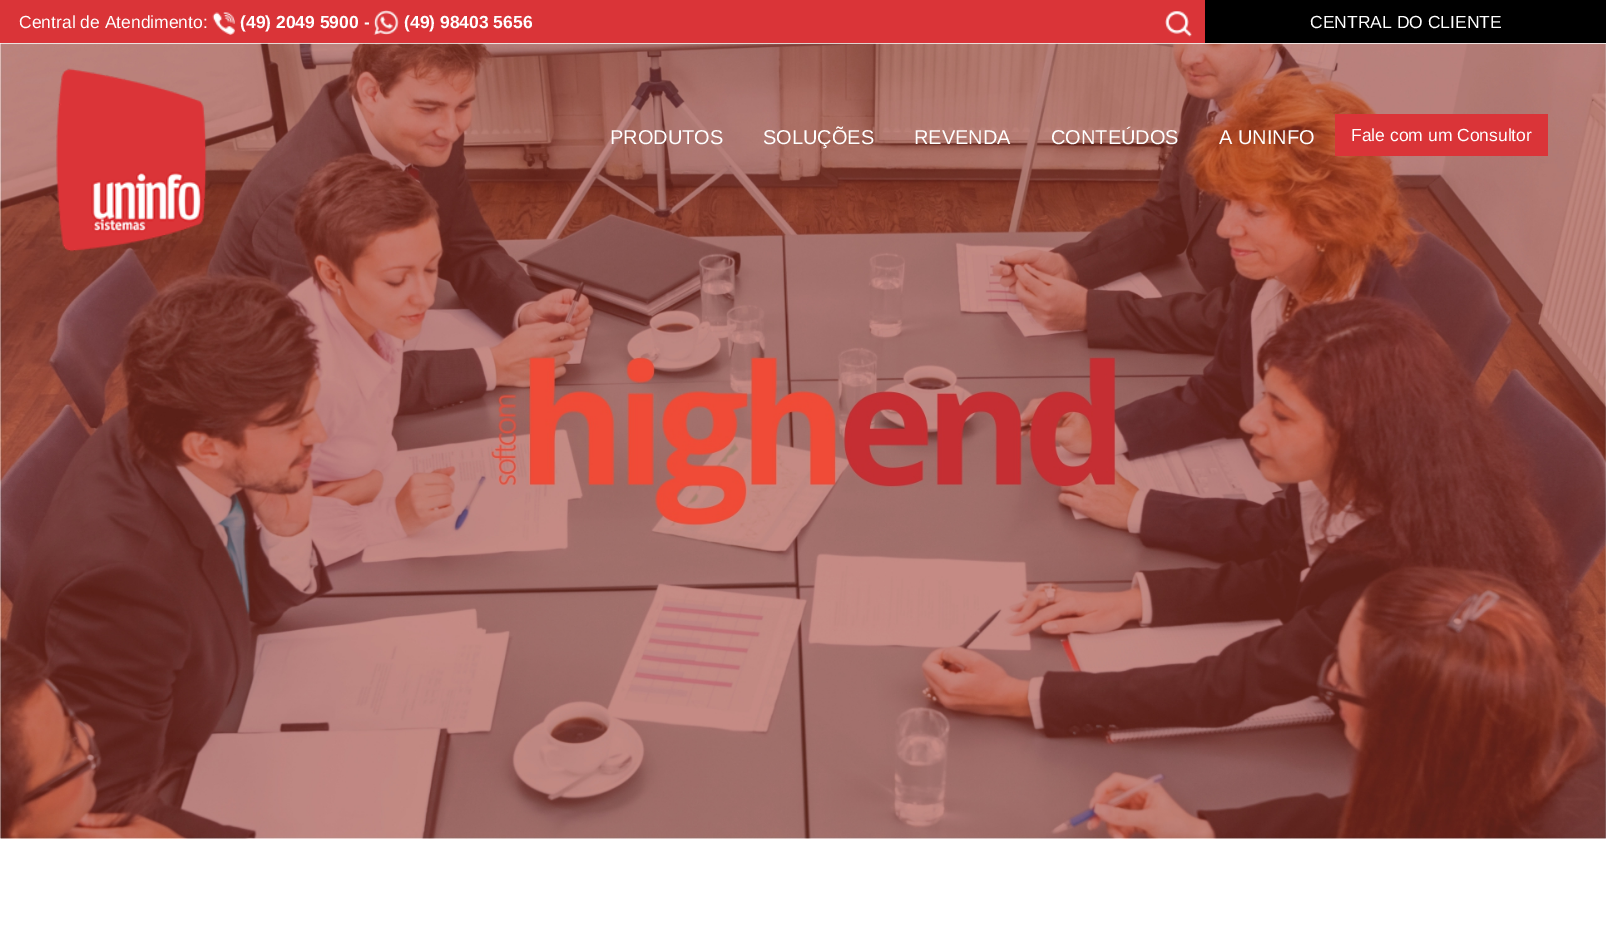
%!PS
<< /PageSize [1606 941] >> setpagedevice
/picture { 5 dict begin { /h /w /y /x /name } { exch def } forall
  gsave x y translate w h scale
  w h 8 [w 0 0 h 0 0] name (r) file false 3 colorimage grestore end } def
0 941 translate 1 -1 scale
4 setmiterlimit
0.855 0.204 0.22 setrgbcolor
0 0 1606 941 rectfill
/LiberationSans-Regular [17.5 0 0 -17.5 0 0] selectfont
1 setgray
19 28 moveto (Central de Atendimento:) show
(img1.rgb) 212 12 23 23 picture
/LiberationSans-Bold [17.5 0 0 -17.5 0 0] selectfont
240 28 moveto (\(49\) 2049 5900 -) show
(img2.rgb) 373 10 26 25 picture
404 28 moveto (\(49\) 98403 5656) show
(img3.rgb) 1165 11 27 26 picture
0 setgray
1205 0 401 43 rectfill
/LiberationSans-Regular [17.5 0 0 -17.5 0 0] selectfont
1 setgray
1310 28 moveto (CENTRAL DO CLIENTE) show
0 43 1606 898 rectfill
(img5.rgb) 0 43 1606 796 picture
(img4.rgb) 56 68 151 184 picture
/LiberationSans-Regular [20 0 0 -20 0 0] selectfont
610 144 moveto (PRODUTOS) show
763 144 moveto (SOLUÇÕES) show
914 144 moveto (REVENDA) show
1051 144 moveto (CONTEÚDOS) show
1219 144 moveto (A UNINFO) show
0.855 0.204 0.22 setrgbcolor
1335 114 213 42 rectfill
/LiberationSans-Regular [17.5 0 0 -17.5 0 0] selectfont
1 setgray
1351 141 moveto (Fale com um Consultor) show
showpage
